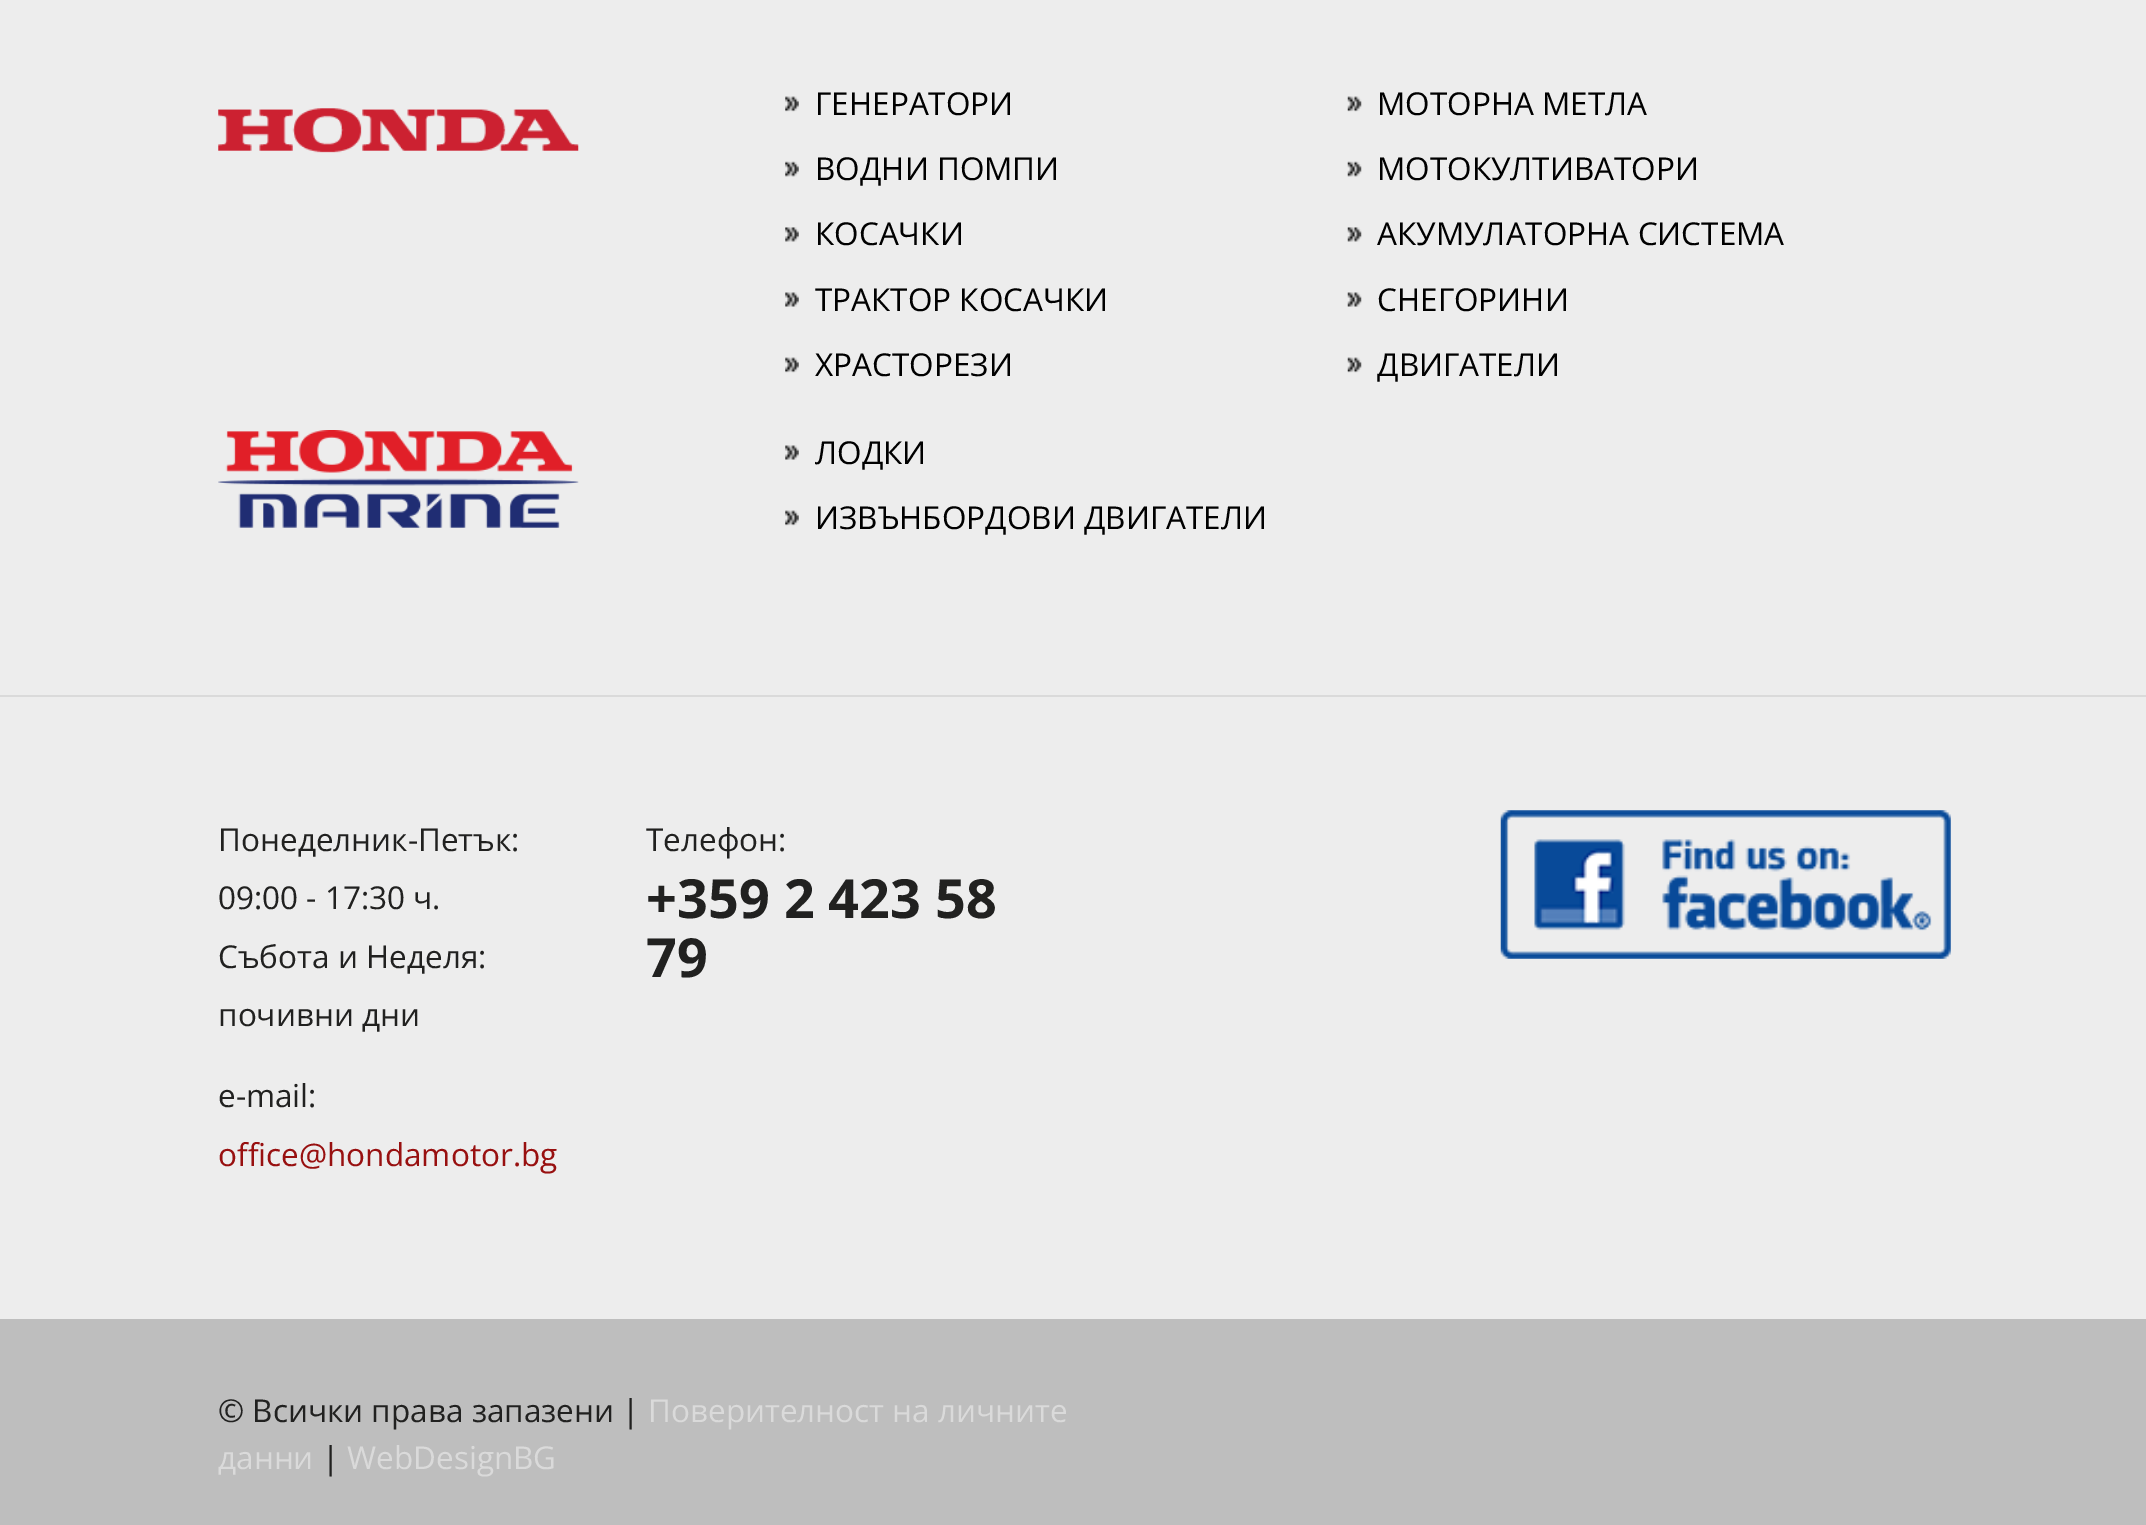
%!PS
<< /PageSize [2146 1525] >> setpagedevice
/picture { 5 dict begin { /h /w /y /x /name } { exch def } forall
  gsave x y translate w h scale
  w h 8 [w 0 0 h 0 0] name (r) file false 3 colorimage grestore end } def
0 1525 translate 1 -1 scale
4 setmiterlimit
0.929 setgray
0 0 2146 1525 rectfill
(img1.rgb) 218 108 361 45 picture
(img2.rgb) 785 96 14 16 picture
/OpenSans-Regular [31.5 0 0 -31.5 0 0] selectfont
0 setgray
815 115 moveto (ГЕНЕРАТОРИ) show
(img3.rgb) 785 161 14 16 picture
815 180 moveto (ВОДНИ ПОМПИ) show
(img4.rgb) 785 227 14 15 picture
815 245 moveto (КОСАЧКИ) show
(img5.rgb) 785 292 14 15 picture
815 311 moveto (ТРАКТОР КОСАЧКИ) show
(img6.rgb) 785 357 14 16 picture
815 376 moveto (ХРАСТОРЕЗИ) show
(img7.rgb) 1347 96 15 16 picture
1377 115 moveto (МОТОРНА МЕТЛА) show
(img8.rgb) 1347 161 15 16 picture
1377 180 moveto (МОТОКУЛТИВАТОРИ) show
(img9.rgb) 1347 227 15 15 picture
1377 245 moveto (АКУМУЛАТОРНА СИСТЕМА) show
(img10.rgb) 1347 292 15 15 picture
1377 311 moveto (СНЕГОРИНИ) show
(img11.rgb) 1347 357 15 16 picture
1377 376 moveto (ДВИГАТЕЛИ) show
(img12.rgb) 218 430 361 98 picture
(img5.rgb) 785 445 14 15 picture
815 464 moveto (ЛОДКИ) show
(img6.rgb) 785 510 14 16 picture
815 529 moveto (ИЗВЪНБОРДОВИ ДВИГАТЕЛИ) show
0.855 setgray
0 695 2146 2 rectfill
0.129 0.129 0.125 setrgbcolor
218 851 moveto (Понеделник-Петък:) show
218 909 moveto (09:00 - 17:30 ч.) show
218 968 moveto (Събота и Неделя:) show
218 1026 moveto (почивни дни) show
218 1107 moveto (e-mail:) show
0.596 0.063 0.063 setrgbcolor
218 1166 moveto (office@hondamotor.bg) show
0.129 0.129 0.125 setrgbcolor
646 851 moveto (Телефон:) show
/OpenSans-Bold [54 0 0 -54 0 0] selectfont
646 918 moveto (+359 2 423 58) show
646 977 moveto (79) show
(img13.rgb) 1500 810 451 149 picture
0.745 setgray
0 1319 2146 206 rectfill
/OpenSans-Regular [31.5 0 0 -31.5 0 0] selectfont
0.129 0.129 0.125 setrgbcolor
218 1422 moveto (© Всички права запазени |) show
0.855 setgray
648 1422 moveto (Поверителност на личните) show
218 1469 moveto (данни) show
0.129 0.129 0.125 setrgbcolor
322 1469 moveto (|) show
0.855 setgray
347 1469 moveto (WebDesignBG) show
showpage
